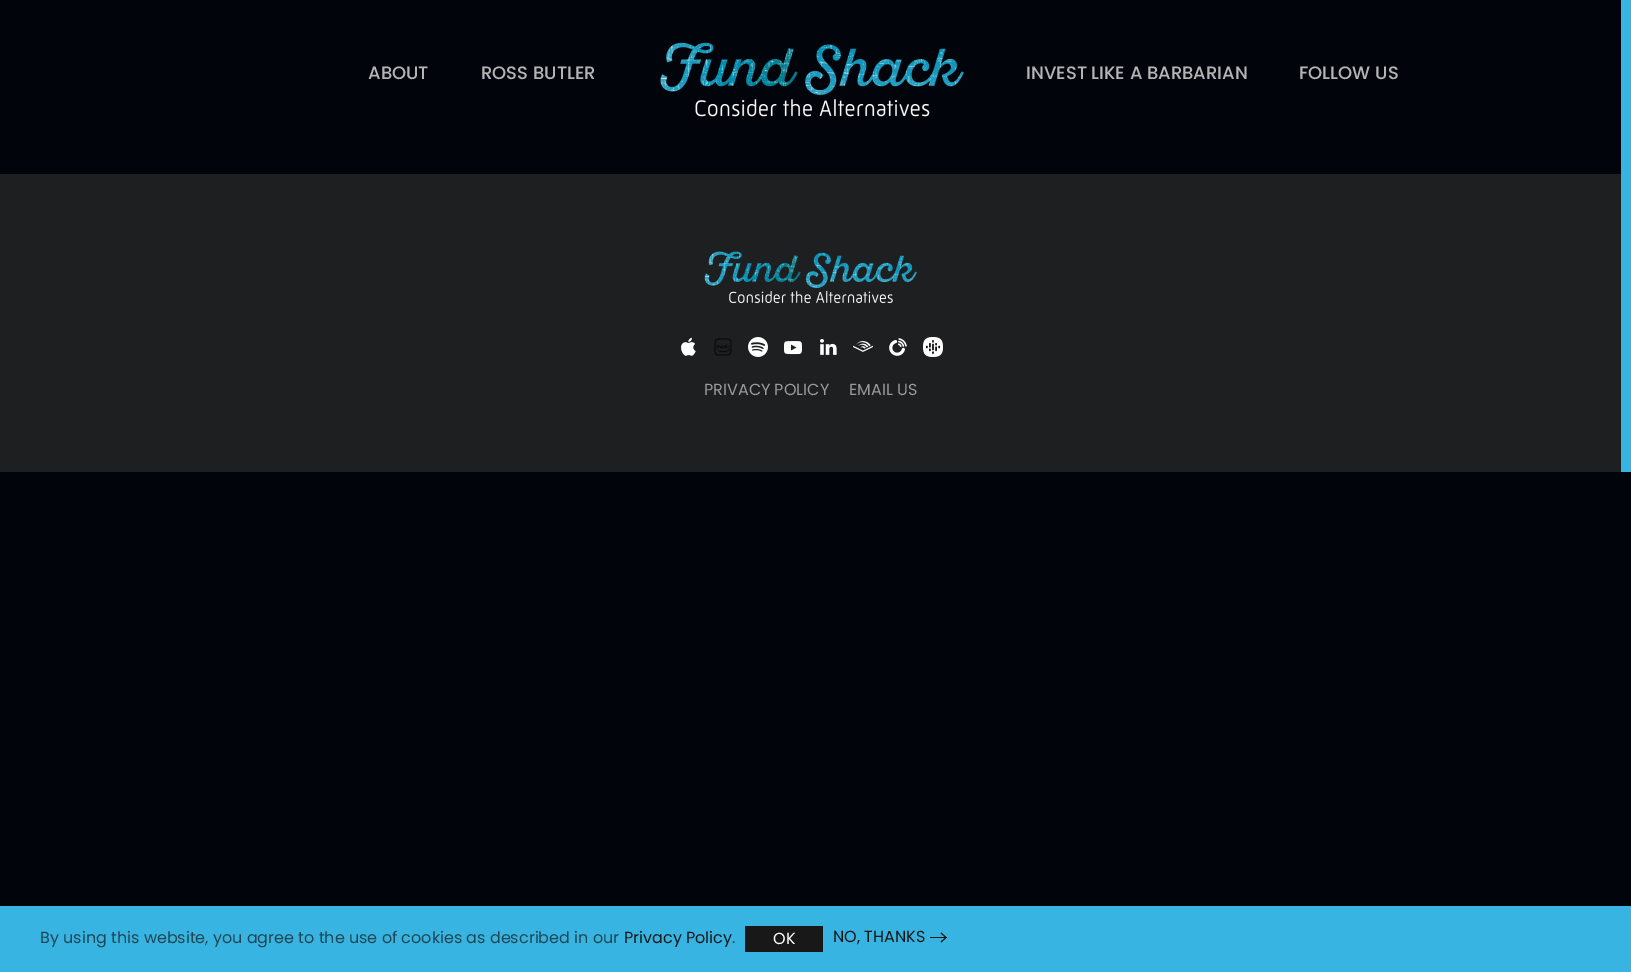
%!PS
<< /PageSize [1631 972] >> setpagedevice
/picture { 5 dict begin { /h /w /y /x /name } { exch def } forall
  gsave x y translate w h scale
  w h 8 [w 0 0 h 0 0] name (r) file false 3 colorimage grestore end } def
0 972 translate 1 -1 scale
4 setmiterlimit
0.004 0.02 0.043 setrgbcolor
0 0 1631 972 rectfill
0.216 0.706 0.882 setrgbcolor
1621 0 10 472 rectfill
/Poppins-Medium [18 0 0 -18 0 0] selectfont
0.702 0.706 0.714 setrgbcolor
368 79 moveto (ABOUT) show
481 79 moveto (ROSS BUTLER) show
(img1.rgb) 660 42 304 75 picture
1026 79 moveto (INVEST LIKE A BARBARIAN) show
1299 79 moveto (FOLLOW US) show
0.114 0.122 0.125 setrgbcolor
0 174 1621 298 rectfill
(img2.rgb) 704 251 213 53 picture
(img3.rgb) 681 337 15 19 picture
(img4.rgb) 714 338 18 18 picture
(img5.rgb) 748 337 20 20 picture
(img6.rgb) 784 341 18 14 picture
(img7.rgb) 820 339 17 16 picture
(img8.rgb) 853 341 20 11 picture
(img9.rgb) 889 338 18 18 picture
(img10.rgb) 923 337 20 20 picture
/Poppins-Regular [16 0 0 -16 0 0] selectfont
0.6 0.604 0.608 setrgbcolor
704 395 moveto (PRIVACY POLICY) show
849 395 moveto (EMAIL US) show
0.216 0.706 0.882 setrgbcolor
0 906 1631 66 rectfill
0.129 0.278 0.329 setrgbcolor
40 943 moveto (By using this website, you agree to the use of cookies as described in our) show
0.094 setgray
624 943 moveto (Privacy Policy) show
0.129 0.278 0.329 setrgbcolor
732 943 moveto (.) show
0.094 setgray
745 926 78 26 rectfill
1 setgray
773 944 moveto (OK) show
0.094 setgray
833 942 moveto (NO, THANKS) show
newpath 941 933 moveto 946 937.5 lineto 941 942 lineto stroke
930 937 17 1 rectfill
showpage
